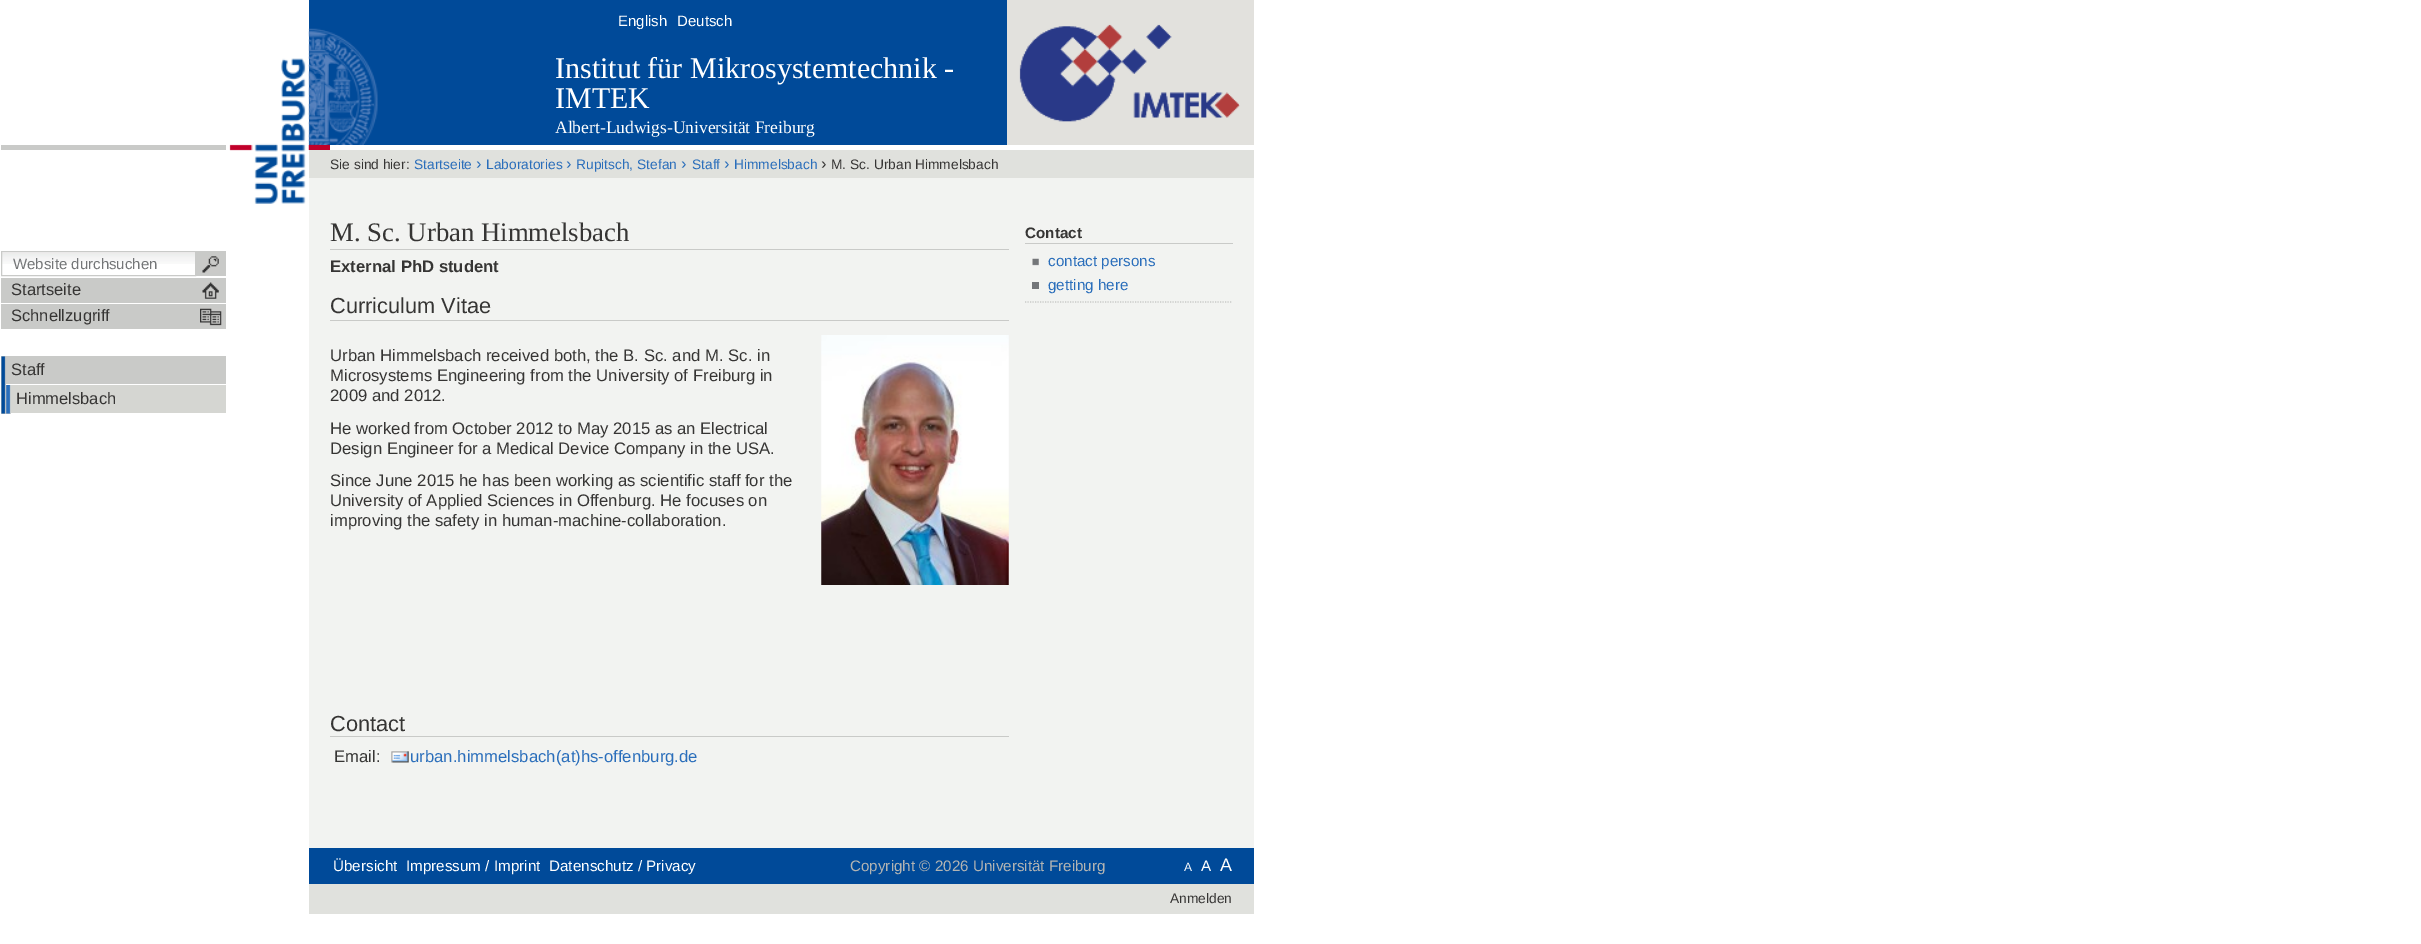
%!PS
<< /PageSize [2421 944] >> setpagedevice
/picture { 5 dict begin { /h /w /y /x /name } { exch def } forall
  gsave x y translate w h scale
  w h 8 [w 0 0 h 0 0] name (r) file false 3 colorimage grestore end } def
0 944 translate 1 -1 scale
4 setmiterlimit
1 setgray
0 0 2421 944 rectfill
0.757 0 0.165 setrgbcolor
308 145 22 5 rectfill
(img1.rgb) 229 58 80 146 picture
0.949 0.953 0.945 setrgbcolor
309 178 945 670 rectfill
0 0.29 0.6 setrgbcolor
309 0 698 145 rectfill
(img2.rgb) 308 28 70 117 picture
/LiberationSans-Regular [15 0 0 -15 0 0] selectfont
1 setgray
618 26 moveto (English) show
677 26 moveto (Deutsch) show
0.886 0.882 0.867 setrgbcolor
1007 0 247 145 rectfill
(img3.rgb) 1019 24 221 98 picture
/LiberationSerif-Regular [30 0 0 -30 0 0] selectfont
1 setgray
555 78 moveto (Institut für Mikrosystemtechnik -) show
555 108 moveto (IMTEK) show
/LiberationSerif-Regular [17.5 0 0 -17.5 0 0] selectfont
555 133 moveto (Albert-Ludwigs-Universität Freiburg) show
0.878 0.882 0.867 setrgbcolor
309 150 945 28 rectfill
/LiberationSans-Regular [13.75 0 0 -13.75 0 0] selectfont
0.212 0.208 0.204 setrgbcolor
330 169 moveto (Sie sind hier:) show
0.165 0.431 0.733 setrgbcolor
414 169 moveto (Startseite) show
/LiberationSans-Regular [16.5 0 0 -16.5 0 0] selectfont
476 169 moveto (›) show
/LiberationSans-Regular [13.75 0 0 -13.75 0 0] selectfont
486 169 moveto (Laboratories) show
/LiberationSans-Regular [16.5 0 0 -16.5 0 0] selectfont
566 169 moveto (›) show
/LiberationSans-Regular [13.75 0 0 -13.75 0 0] selectfont
576 169 moveto (Rupitsch, Stefan) show
/LiberationSans-Regular [16.5 0 0 -16.5 0 0] selectfont
681 169 moveto (›) show
/LiberationSans-Regular [13.75 0 0 -13.75 0 0] selectfont
692 169 moveto (Staff) show
/LiberationSans-Regular [16.5 0 0 -16.5 0 0] selectfont
724 169 moveto (›) show
/LiberationSans-Regular [13.75 0 0 -13.75 0 0] selectfont
734 169 moveto (Himmelsbach) show
/LiberationSans-Regular [16.5 0 0 -16.5 0 0] selectfont
0.212 0.208 0.204 setrgbcolor
821 169 moveto (›) show
/LiberationSans-Regular [13.75 0 0 -13.75 0 0] selectfont
831 169 moveto (M. Sc. Urban Himmelsbach) show
0.788 0.792 0.784 setrgbcolor
330 249 679 1 rectfill
/LiberationSerif-Regular [26.75 0 0 -26.75 0 0] selectfont
0.212 0.208 0.204 setrgbcolor
330 241 moveto (M. Sc. Urban Himmelsbach) show
/LiberationSans-Bold [16.7 0 0 -16.7 0 0] selectfont
330 272 moveto (External PhD student) show
0.788 0.792 0.784 setrgbcolor
330 320 679 1 rectfill
/LiberationSans-Regular [21.75 0 0 -21.75 0 0] selectfont
0.212 0.208 0.204 setrgbcolor
330 313 moveto (Curriculum Vitae) show
/LiberationSans-Regular [16.7 0 0 -16.7 0 0] selectfont
330 361 moveto (Urban Himmelsbach received both, the B. Sc. and M. Sc. in) show
(img4.rgb) 821 335 188 250 picture
330 381 moveto (Microsystems Engineering from the University of Freiburg in) show
330 401 moveto (2009 and 2012.) show
330 434 moveto (He worked from October 2012 to May 2015 as an Electrical) show
330 454 moveto (Design Engineer for a Medical Device Company in the USA.) show
330 486 moveto (Since June 2015 he has been working as) show
640 486 moveto (scientific staff for the) show
330 506 moveto (University of Applied Sciences in Offenburg. He focuses on) show
330 526 moveto (improving the safety in human-machine-collaboration.) show
0.788 0.792 0.784 setrgbcolor
330 736 679 1 rectfill
/LiberationSans-Regular [21.75 0 0 -21.75 0 0] selectfont
0.212 0.208 0.204 setrgbcolor
330 731 moveto (Contact) show
/LiberationSans-Regular [16.7 0 0 -16.7 0 0] selectfont
334 762 moveto (Email:) show
(img5.rgb) 391 751 18 12 picture
0.165 0.431 0.733 setrgbcolor
410 762 moveto (urban.himmelsbach\(at\)hs-offenburg.de) show
0.788 0.792 0.784 setrgbcolor
1025 243 208 1 rectfill
/LiberationSans-Bold [15.2 0 0 -15.2 0 0] selectfont
0.212 0.208 0.204 setrgbcolor
1025 238 moveto (Contact) show
0.788 0.792 0.784 setrgbcolor
1.2 setlinewidth
[1.25 1.25] 0 setdash
newpath 1025 302 moveto 1232.5 302 lineto stroke
(img6.rgb) 1032 258 7 8 picture
/LiberationSans-Regular [15.2 0 0 -15.2 0 0] selectfont
0.165 0.431 0.733 setrgbcolor
1048 266 moveto (contact persons) show
0.455 0.463 0.475 setrgbcolor
1032 282 7 7 rectfill
0.165 0.431 0.733 setrgbcolor
1048 290 moveto (getting here) show
0.788 0.792 0.784 setrgbcolor
1 145 225 5 rectfill
(img7.rgb) 2 252 193 12 picture
1 setlinewidth
[] 0 setdash
1.5 251.5 194 24 rectstroke
/LiberationSans-Regular [15 0 0 -15 0 0] selectfont
0.455 0.463 0.471 setrgbcolor
13 269 moveto (Website durchsuchen) show
0.788 0.792 0.784 setrgbcolor
196 251 30 25 rectfill
(img8.rgb) 202 256 17 17 picture
1 278 225 25 rectfill
(img9.rgb) 202 282 17 17 picture
/LiberationSans-Regular [16.5 0 0 -16.5 0 0] selectfont
0.212 0.208 0.204 setrgbcolor
11 295 moveto (Startseite) show
0.788 0.792 0.784 setrgbcolor
1 304 225 25 rectfill
(img10.rgb) 200 308 22 18 picture
0.212 0.208 0.204 setrgbcolor
11 321 moveto (Schnellzugriff) show
0.788 0.792 0.784 setrgbcolor
1 356 225 58 rectfill
(img11.rgb) 1 356 5 58 picture
0.212 0.208 0.204 setrgbcolor
11 375 moveto (Staff) show
1 setgray
6 384 220 1 rectfill
(img12.rgb) 6 385 5 29 picture
0.835 0.839 0.824 setrgbcolor
11 385 215 28 rectfill
0.212 0.208 0.204 setrgbcolor
16 404 moveto (Himmelsbach) show
1 setgray
11 413 215 1 rectfill
0 0.29 0.6 setrgbcolor
309 848 945 36 rectfill
/LiberationSans-Regular [15.2 0 0 -15.2 0 0] selectfont
1 setgray
333 871 moveto (Übersicht) show
406 871 moveto (Impressum / Imprint) show
549 871 moveto (Datenschutz / Privacy) show
0.698 0.706 0.702 setrgbcolor
850 871 moveto (Copyright © 2026 Universität Freiburg) show
/LiberationSans-Regular [12 0 0 -12 0 0] selectfont
1 setgray
1184 871 moveto (A) show
/LiberationSans-Regular [15.2 0 0 -15.2 0 0] selectfont
1201 871 moveto (A) show
/LiberationSans-Regular [18 0 0 -18 0 0] selectfont
1220 871 moveto (A) show
0.878 0.882 0.867 setrgbcolor
309 884 945 30 rectfill
/LiberationSans-Regular [13.75 0 0 -13.75 0 0] selectfont
0.212 0.208 0.204 setrgbcolor
1170 903 moveto (Anmelden) show
showpage
